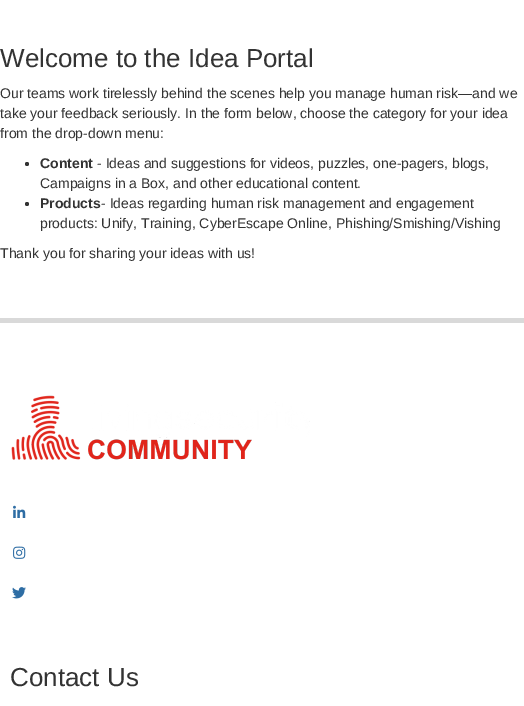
%!PS
<< /PageSize [524 706] >> setpagedevice
/picture { 5 dict begin { /h /w /y /x /name } { exch def } forall
  gsave x y translate w h scale
  w h 8 [w 0 0 h 0 0] name (r) file false 3 colorimage grestore end } def
0 706 translate 1 -1 scale
4 setmiterlimit
1 setgray
0 0 524 706 rectfill
/LiberationSans-Regular [26 0 0 -26 0 0] selectfont
0.2 setgray
0 67 moveto (Welcome to the Idea Portal) show
/LiberationSans-Regular [14 0 0 -14 0 0] selectfont
0 98 moveto (Our teams work tirelessly behind the scenes help you manage human risk—and we) show
0 118 moveto (take your feedback seriously. In the form below, choose the category for your idea) show
0 138 moveto (from the drop-down menu:) show
newpath 27 164 2 0 360 arc closepath fill
/LiberationSans-Bold [14 0 0 -14 0 0] selectfont
40 168 moveto (Content) show
/LiberationSans-Regular [14 0 0 -14 0 0] selectfont
97 168 moveto (- Ideas and suggestions for videos, puzzles, one-pagers, blogs,) show
40 188 moveto (Campaigns in a Box, and other educational content.) show
newpath 27 204 2 0 360 arc closepath fill
/LiberationSans-Bold [14 0 0 -14 0 0] selectfont
40 208 moveto (Products) show
/LiberationSans-Regular [14 0 0 -14 0 0] selectfont
101 208 moveto (- Ideas regarding human risk management and engagement) show
40 228 moveto (products: Unify, Training, CyberEscape Online, Phishing/Smishing/Vishing) show
0 258 moveto (Thank you for sharing your ideas with us!) show
0.851 setgray
0 318 524 5 rectfill
(img1.rgb) 11 395 299 65 picture
(img2.rgb) 13 505 13 13 picture
(img3.rgb) 13 546 13 13 picture
(img4.rgb) 12 587 14 12 picture
/LiberationSans-Regular [26 0 0 -26 0 0] selectfont
0.2 setgray
10 686 moveto (Contact Us) show
showpage
